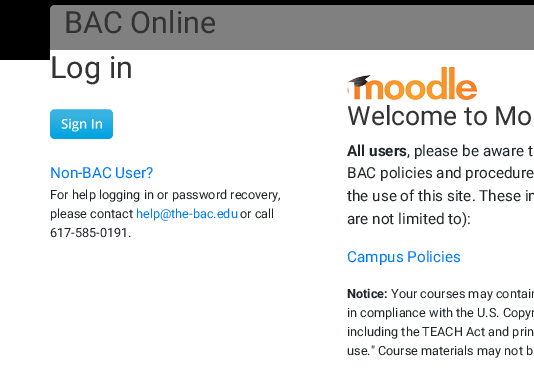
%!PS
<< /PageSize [534 371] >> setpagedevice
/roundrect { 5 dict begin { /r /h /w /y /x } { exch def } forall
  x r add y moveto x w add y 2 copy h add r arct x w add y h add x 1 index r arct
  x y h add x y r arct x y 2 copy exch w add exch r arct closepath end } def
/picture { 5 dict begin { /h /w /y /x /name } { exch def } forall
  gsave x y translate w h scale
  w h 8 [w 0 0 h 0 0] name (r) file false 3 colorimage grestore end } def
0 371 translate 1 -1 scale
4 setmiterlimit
1 setgray
0 0 534 371 rectfill
0 setgray
0 0 534 60 rectfill
1 setgray
50 5 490 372 6 roundrect fill
0.502 setgray
newpath 55 5 moveto 534 5 lineto 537 5 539 7 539 10 curveto 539 50 lineto 50 50 lineto 50 10 lineto 50 7 52 5 55 5 curveto closepath fill
/Roboto-Regular [30.5 0 0 -30.5 0 0] selectfont
0.2 setgray
64 33 moveto (BAC Online) show
50 78 moveto (Log in) show
(img1.rgb) 50 109 63 30 picture
/Roboto-Regular [15.25 0 0 -15.25 0 0] selectfont
0 0.482 1 setrgbcolor
50 178 moveto (Non-BAC User?) show
/Roboto-Regular [12.7 0 0 -12.7 0 0] selectfont
0.129 0.145 0.161 setrgbcolor
50 199 moveto (For help logging in or password recovery,) show
50 218 moveto (please contact) show
0 0.482 1 setrgbcolor
136 218 moveto (help@the-bac.edu) show
0.129 0.145 0.161 setrgbcolor
240 218 moveto (or call) show
50 237 moveto (617-585-0191.) show
(img2.rgb) 347 67 130 33 picture
/Roboto-Regular [26.5 0 0 -26.5 0 0] selectfont
0.2 setgray
347 125 moveto (Welcome to Mo) show
/Roboto-Bold [15.25 0 0 -15.25 0 0] selectfont
0.129 0.145 0.161 setrgbcolor
347 156 moveto (All users) show
/Roboto-Regular [15.25 0 0 -15.25 0 0] selectfont
407 156 moveto (, please be aware t) show
347 178 moveto (BAC policies and procedure) show
347 201 moveto (the use of this site. These in) show
347 224 moveto (are not limited to\):) show
0 0.482 1 setrgbcolor
347 262 moveto (Campus Policies) show
/Roboto-Bold [12.7 0 0 -12.7 0 0] selectfont
0.129 0.145 0.161 setrgbcolor
347 298 moveto (Notice:) show
/Roboto-Regular [12.7 0 0 -12.7 0 0] selectfont
391 298 moveto (Your courses may contain) show
347 317 moveto (in compliance with the U.S. Copyr) show
347 336 moveto (including the TEACH Act and prin) show
347 355 moveto (use." Course materials may not b) show
showpage
